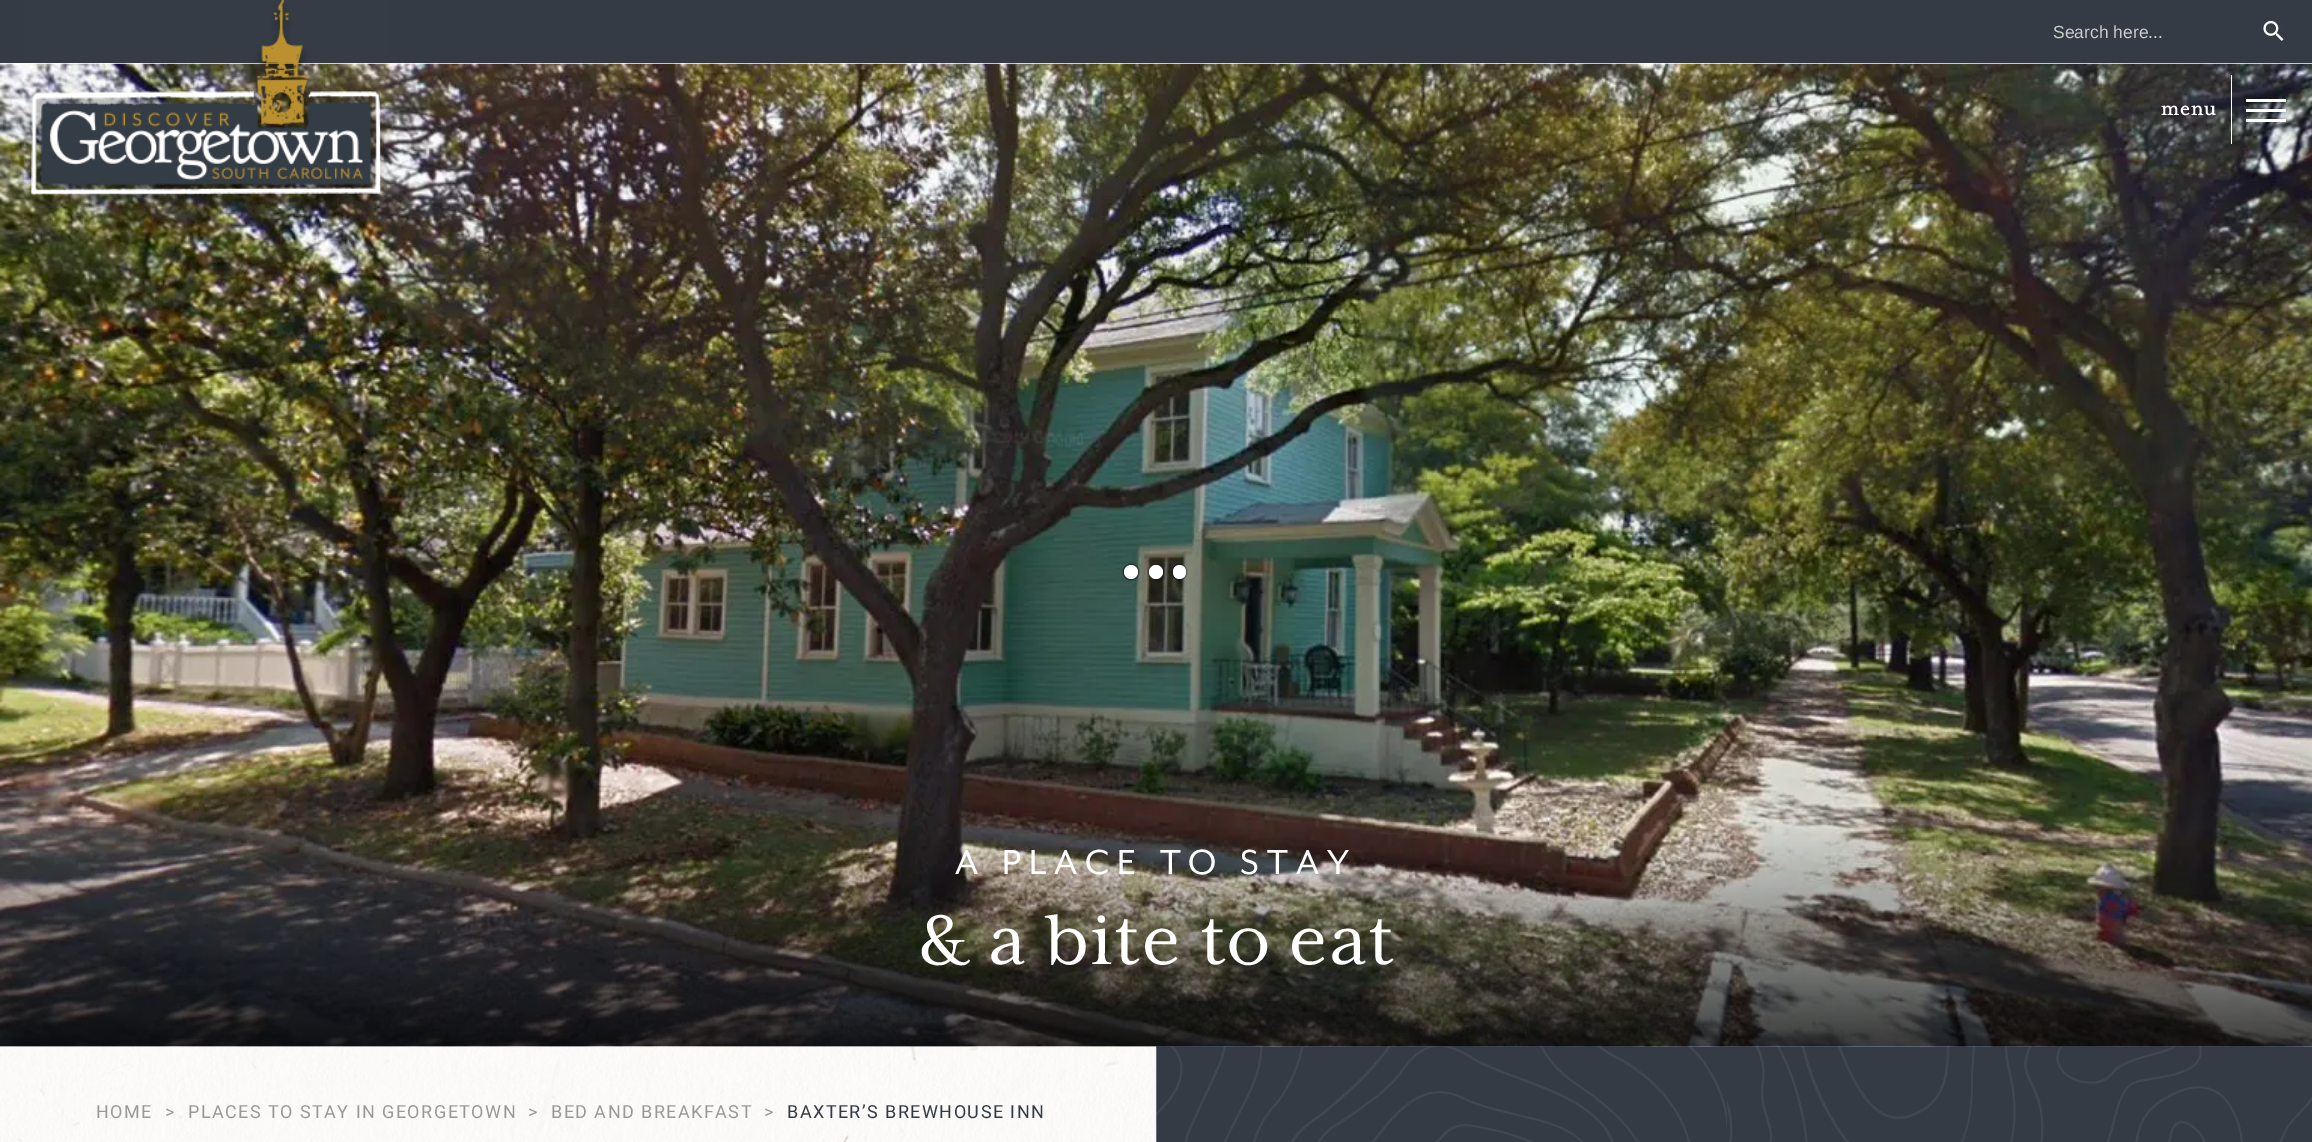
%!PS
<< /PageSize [2312 1142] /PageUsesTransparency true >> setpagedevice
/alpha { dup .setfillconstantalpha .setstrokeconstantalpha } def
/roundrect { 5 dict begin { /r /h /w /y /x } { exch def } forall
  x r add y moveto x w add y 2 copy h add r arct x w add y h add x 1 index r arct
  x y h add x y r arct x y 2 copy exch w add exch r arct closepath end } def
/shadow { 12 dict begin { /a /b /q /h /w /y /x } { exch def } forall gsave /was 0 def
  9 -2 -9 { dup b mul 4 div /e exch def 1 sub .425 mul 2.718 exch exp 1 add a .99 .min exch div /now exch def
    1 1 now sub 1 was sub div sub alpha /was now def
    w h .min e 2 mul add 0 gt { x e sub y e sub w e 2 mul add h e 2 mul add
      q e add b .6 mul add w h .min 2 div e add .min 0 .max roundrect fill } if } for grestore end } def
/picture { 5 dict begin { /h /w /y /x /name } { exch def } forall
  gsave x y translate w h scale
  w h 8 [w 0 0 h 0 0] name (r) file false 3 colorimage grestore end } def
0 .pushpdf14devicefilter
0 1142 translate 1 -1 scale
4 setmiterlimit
0.204 0.231 0.271 setrgbcolor
0 0 2312 1142 rectfill
(img1.rgb) 27 1046 2285 96 picture
1 setgray
0 63 2312 1 rectfill
(img5.rgb) 0 1046 1157 96 picture
(img4.rgb) 0 63 2312 984 picture
(img2.rgb) 25 0 362 207 picture
/LiberationSans-Regular [17.5 0 0 -17.5 0 0] selectfont
0.8 setgray
2053 38 moveto (Search here...) show
(img3.rgb) 2263 20 21 21 picture
1 setgray
2231 75 1 69 rectfill
/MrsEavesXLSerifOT-Bold [20 0 0 -20 0 0] selectfont
2161 115 moveto 1.25 0 (menu) ashow
0 setgray
2246 99 40 3 0 2.5 0.5 shadow
1 setgray
2246 99 40 3 rectfill
0 setgray
2246 119 40 3 0 2.5 0.5 shadow
1 setgray
2246 119 40 3 rectfill
0 setgray
2246 109 40 3 0 2.5 0.5 shadow
1 setgray
2246 109 40 3 rectfill
0 setgray
1124 565 14 14 7 1 1 shadow
1124 565 14 14 7 1 1 shadow
1 setgray
newpath 1131 572 7 0 360 arc closepath fill
0 setgray
1149 565 14 14 7 1 1 shadow
1 setgray
newpath 1156 572 7 0 360 arc closepath fill
0 setgray
1173 565 13 14 6.5 1 1 shadow
1 setgray
1173 565 13 14 6.5 roundrect fill
/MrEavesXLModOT-Regular [40 0 0 -40 0 0] selectfont
955 874 moveto 8 0 (A PLACE TO STAY) ashow
/MrsEavesXLSerifOT-Regular [80 0 0 -80 0 0] selectfont
918 964 moveto 1.25 0 (& a bite to eat) ashow
/Roboto-Regular [18 0 0 -18 0 0] selectfont
0.6 setgray
96 1118 moveto 1.45 0 (HOME) ashow
165 1118 moveto 1.45 0 (>) ashow
188 1118 moveto 1.45 0 (PLACES TO STAY IN GEORGETOWN) ashow
528 1118 moveto 1.45 0 (>) ashow
551 1118 moveto 1.45 0 (BED AND BREAKFAST) ashow
764 1118 moveto 1.45 0 (>) ashow
0.204 0.231 0.271 setrgbcolor
787 1118 moveto 1.45 0 (BAXTER’S BREWHOUSE INN) ashow
.poppdf14devicefilter showpage
